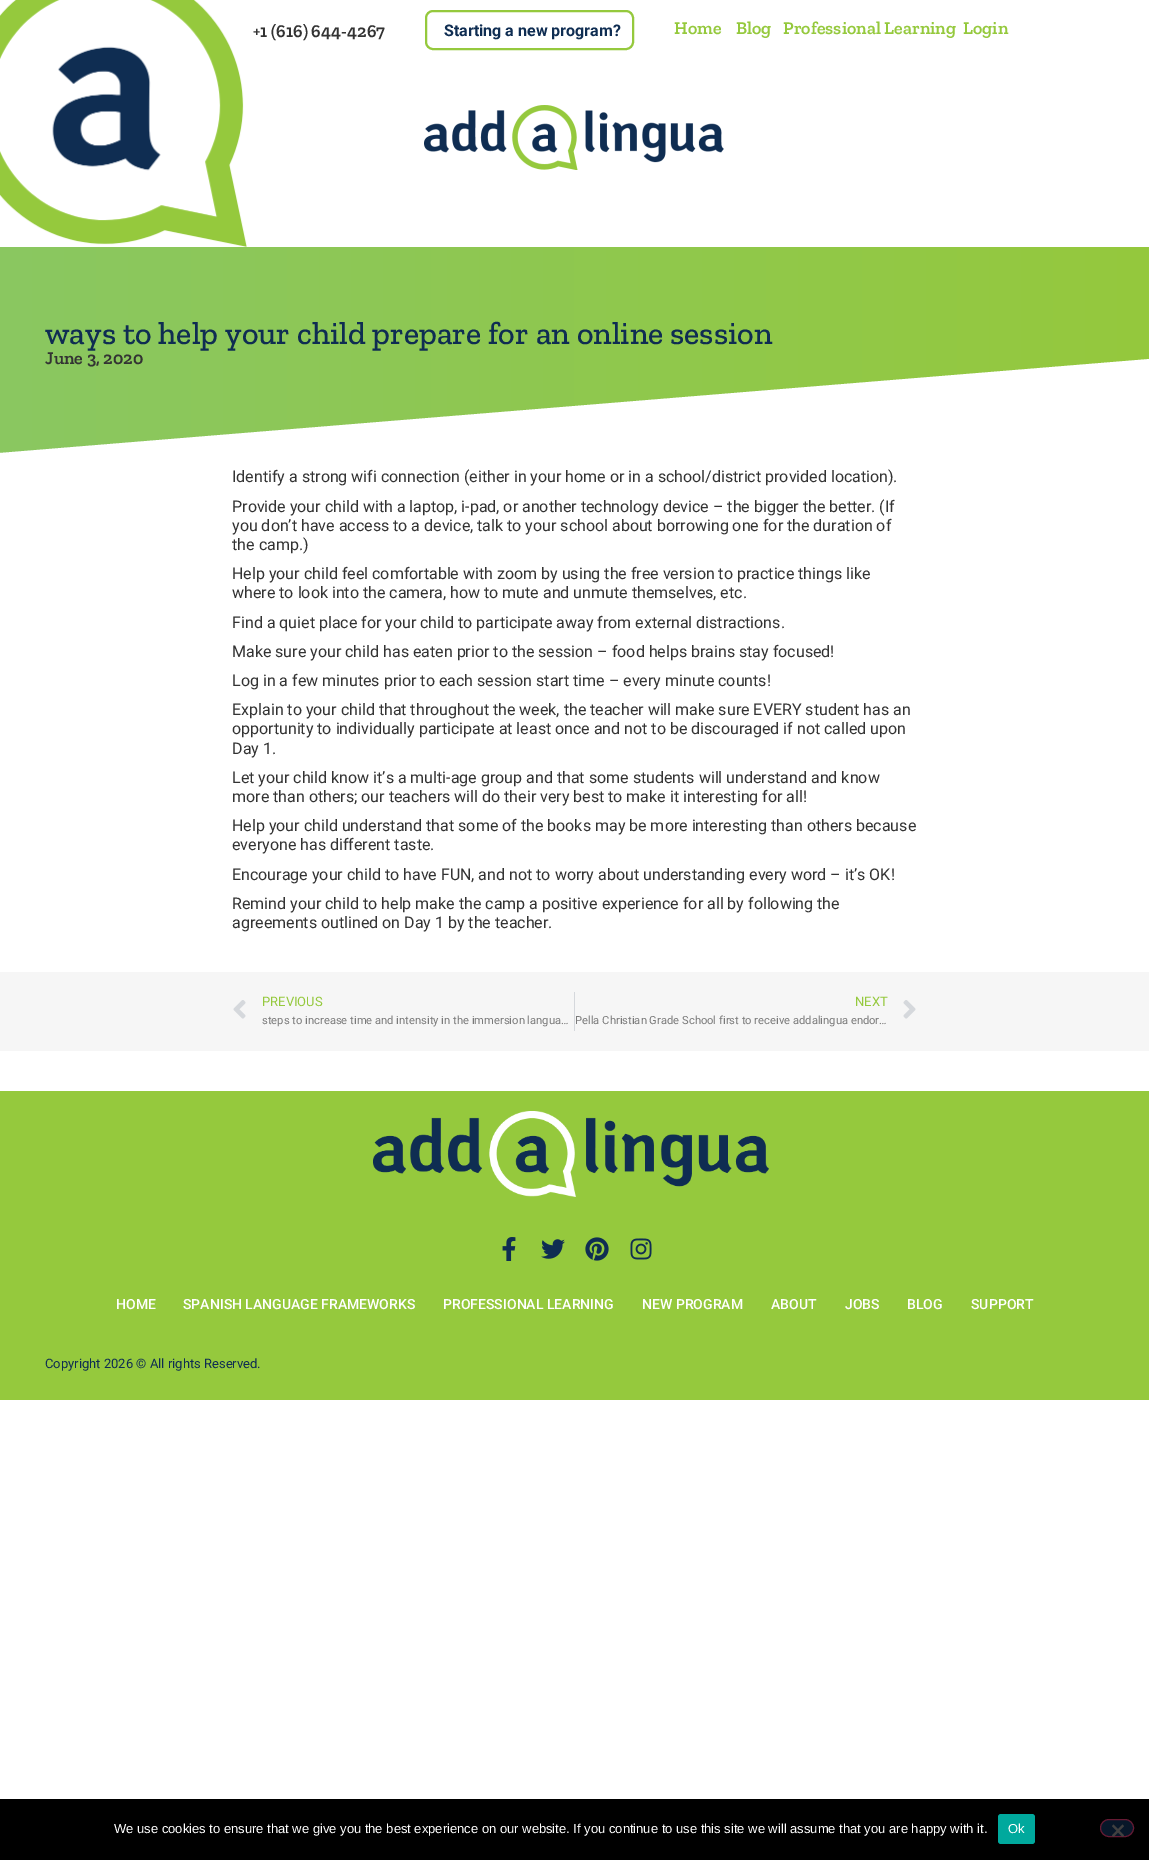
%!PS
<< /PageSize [1149 1860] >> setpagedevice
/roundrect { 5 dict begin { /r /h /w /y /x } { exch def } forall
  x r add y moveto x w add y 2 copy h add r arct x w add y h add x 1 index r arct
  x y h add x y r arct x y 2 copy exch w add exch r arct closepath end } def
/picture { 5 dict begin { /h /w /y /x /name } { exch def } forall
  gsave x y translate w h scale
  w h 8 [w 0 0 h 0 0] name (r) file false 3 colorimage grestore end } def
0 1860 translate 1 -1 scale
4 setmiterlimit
1 setgray
0 0 1149 1860 rectfill
(img1.rgb) 0 0 247 247 picture
/ZillaSlab-SemiBold [18 0 0 -18 0 0] selectfont
0.2 setgray
253 37 moveto (+1 \(616\) 644-4267) show
0.584 0.788 0.239 setrgbcolor
2 setlinewidth
426 11 207 38 7 roundrect stroke
/Roboto-Bold [16 0 0 -16 0 0] selectfont
0.059 0.176 0.322 setrgbcolor
444 36 moveto (Starting a new program?) show
/ZillaSlab-SemiBold [18 0 0 -18 0 0] selectfont
0.584 0.788 0.239 setrgbcolor
674 34 moveto (Home) show
736 34 moveto (Blog) show
783 34 moveto (Professional Learning) show
963 34 moveto (Login) show
(img2.rgb) 424 105 300 65 picture
gsave newpath 0 247 moveto 1149 247 lineto 1149 453 lineto 0 453 lineto closepath clip newpath
<< /ShadingType 2 /ColorSpace /DeviceRGB /Coords [0 352 1149 352] /Extend [true true] /Function << /FunctionType 2 /Domain [0 1] /C0 [0.541 0.78 0.38] /C1 [0.584 0.788 0.239] /N 1 >> >> shfill grestore
/ZillaSlab-Medium [32 0 0 -32 0 0] selectfont
0.059 0.176 0.322 setrgbcolor
45 344 moveto (ways to help your child prepare for an online session) show
gsave
0 358 1149 100 rectclip
1 setgray
newpath 0 453 moveto 0 459 lineto 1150 459 lineto 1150 359 lineto closepath fill
grestore
/ZillaSlab-SemiBold [18 0 0 -18 0 0] selectfont
0.2 setgray
45 364 moveto (June 3, 2020) show
/Roboto-Regular [16 0 0 -16 0 0] selectfont
232 482 moveto (Identify a strong wifi connection \(either in your home or in a school/district provided location\).) show
232 512 moveto (Provide your child with a laptop, i-pad, or another technology device – the bigger the better. \(If) show
232 531 moveto (you don’t have access to a device, talk to your school about borrowing one for the duration of) show
232 550 moveto (the camp.\)) show
232 579 moveto (Help your child feel comfortable with zoom by using the free version to practice things like) show
232 598 moveto (where to look into the camera, how to mute and unmute themselves, etc.) show
232 628 moveto (Find a quiet place for your child to participate away from external distractions.) show
232 657 moveto (Make sure your child has eaten prior to the session – food helps brains stay focused!) show
232 686 moveto (Log in a few minutes prior to each session start time – every minute counts!) show
232 715 moveto (Explain to your child that throughout the week, the teacher will make sure EVERY student has an) show
232 734 moveto (opportunity to individually participate at least once and not to be discouraged if not called upon) show
232 754 moveto (Day 1.) show
232 783 moveto (Let your child know it’s a multi-age group and that some students will understand and know) show
232 802 moveto (more than others; our teachers will do their very best to make it interesting for all!) show
232 831 moveto (Help your child understand that some of the books may be more interesting than others because) show
232 850 moveto (everyone has different taste.) show
232 880 moveto (Encourage your child to have FUN, and not to worry about understanding every word – it’s OK!) show
232 909 moveto (Remind your child to help make the camp a positive experience for all by following the) show
232 928 moveto (agreements outlined on Day 1 by the teacher.) show
0.965 setgray
0 972 1149 79 rectfill
(img3.rgb) 233 1000 13 19 picture
/Roboto-Regular [13 0 0 -13 0 0] selectfont
0.584 0.788 0.239 setrgbcolor
262 1006 moveto (PREVIOUS) show
/Roboto-Regular [11.2 0 0 -11.2 0 0] selectfont
0.478 setgray
262 1024 moveto (steps to increase time and intensity in the immersion langua…) show
0.835 0.847 0.863 setrgbcolor
574 992 1 39 rectfill
/Roboto-Regular [13 0 0 -13 0 0] selectfont
0.584 0.788 0.239 setrgbcolor
855 1006 moveto (NEXT) show
/Roboto-Regular [11.2 0 0 -11.2 0 0] selectfont
0.478 setgray
575 1024 moveto (Pella Christian Grade School first to receive addalingua endor…) show
(img4.rgb) 903 1000 13 19 picture
0.584 0.788 0.239 setrgbcolor
0 1091 1149 309 rectfill
(img5.rgb) 373 1111 396 86 picture
(img6.rgb) 502 1237 14 24 picture
(img7.rgb) 541 1239 24 20 picture
(img8.rgb) 585 1237 24 24 picture
(img9.rgb) 630 1238 22 22 picture
/Roboto-Medium [14 0 0 -14 0 0] selectfont
1 setgray
116 1309 moveto (HOME) show
183 1309 moveto (SPANISH LANGUAGE FRAMEWORKS) show
443 1309 moveto (PROFESSIONAL LEARNING) show
642 1309 moveto (NEW PROGRAM) show
771 1309 moveto (ABOUT) show
845 1309 moveto (JOBS) show
907 1309 moveto (BLOG) show
971 1309 moveto (SUPPORT) show
/Roboto-Regular [13 0 0 -13 0 0] selectfont
0.059 0.176 0.322 setrgbcolor
45 1368 moveto (Copyright 2026 © All rights Reserved.) show
0 setgray
0 1799 1149 61 rectfill
/LiberationSans-Regular [13 0 0 -13 0 0] selectfont
1 setgray
114 1833 moveto (We use cookies to ensure that we give you the best experience on our website. If you continue to use this site we will assume that you are happy with it.) show
0 0.663 0.616 setrgbcolor
998 1814 37 30 3 roundrect fill
1 setgray
1008 1833 moveto (Ok) show
0.031 0.09 0.161 setrgbcolor
1100.5 1819.5 33 17 8.5 roundrect gsave fill grestore
0.4 0.102 0.2 setrgbcolor
1 setlinewidth
stroke
0.251 setgray
newpath 1122.5 1824.5 moveto 1124 1826 lineto 1113.5 1837 lineto 1112 1835.5 lineto closepath fill
newpath 1112 1826 moveto 1113.5 1824.5 lineto 1124 1835.5 lineto 1122.5 1837 lineto closepath fill
showpage
